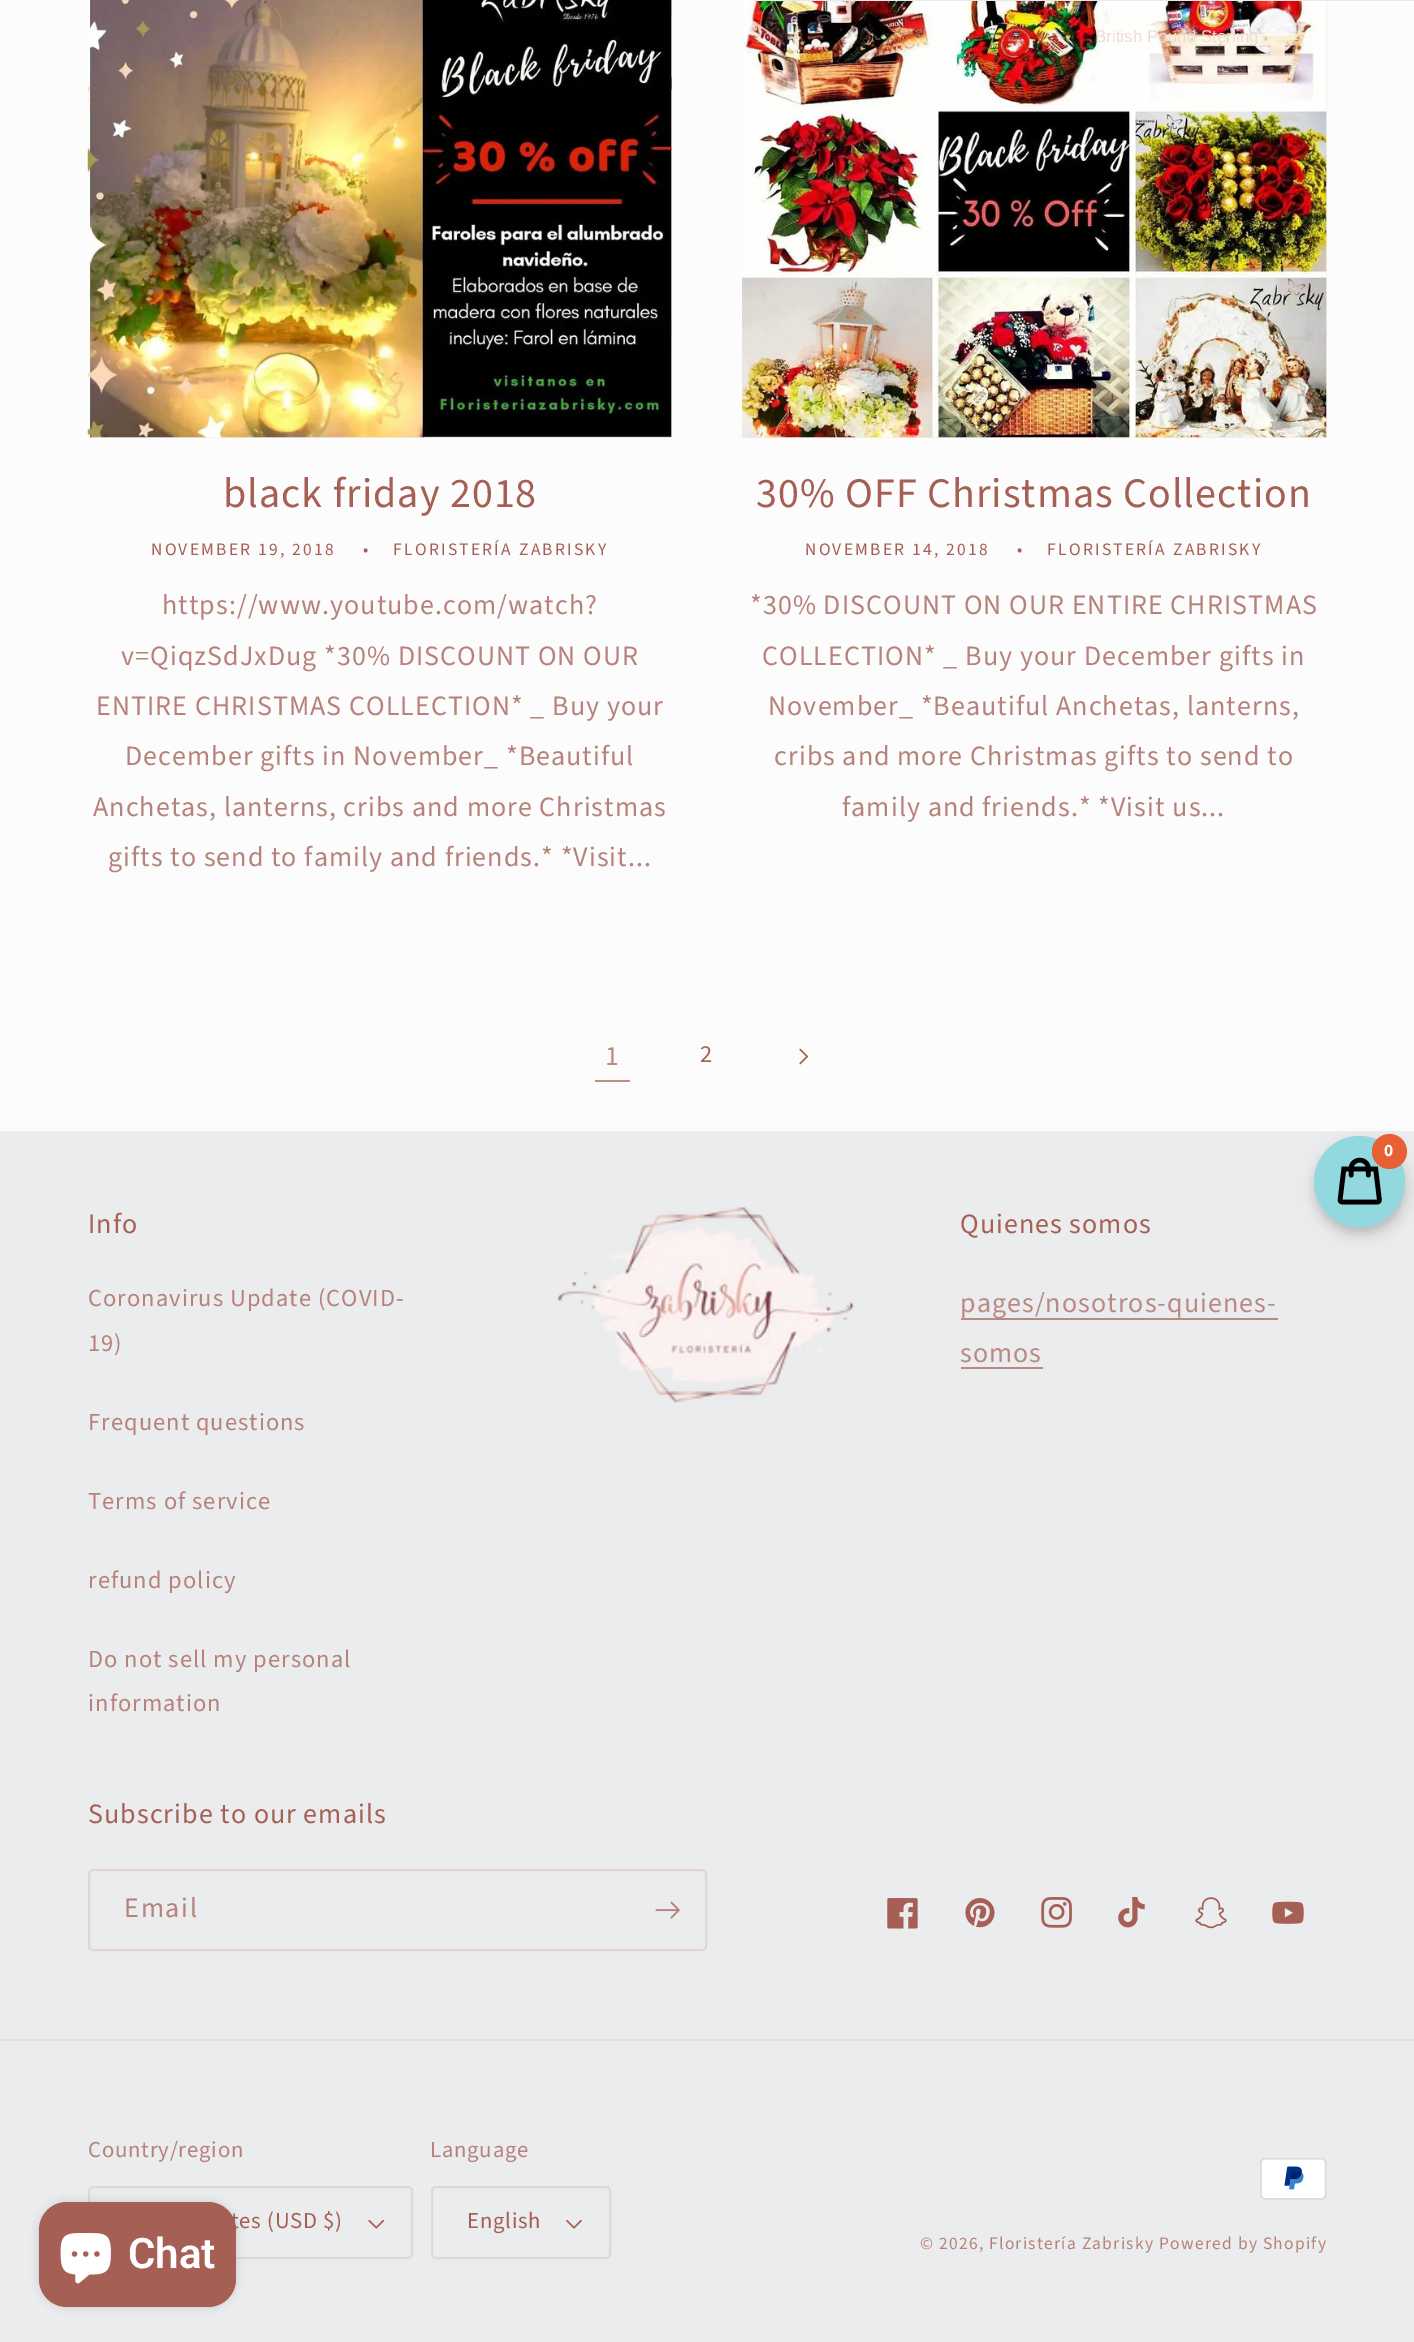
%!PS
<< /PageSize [1414 2342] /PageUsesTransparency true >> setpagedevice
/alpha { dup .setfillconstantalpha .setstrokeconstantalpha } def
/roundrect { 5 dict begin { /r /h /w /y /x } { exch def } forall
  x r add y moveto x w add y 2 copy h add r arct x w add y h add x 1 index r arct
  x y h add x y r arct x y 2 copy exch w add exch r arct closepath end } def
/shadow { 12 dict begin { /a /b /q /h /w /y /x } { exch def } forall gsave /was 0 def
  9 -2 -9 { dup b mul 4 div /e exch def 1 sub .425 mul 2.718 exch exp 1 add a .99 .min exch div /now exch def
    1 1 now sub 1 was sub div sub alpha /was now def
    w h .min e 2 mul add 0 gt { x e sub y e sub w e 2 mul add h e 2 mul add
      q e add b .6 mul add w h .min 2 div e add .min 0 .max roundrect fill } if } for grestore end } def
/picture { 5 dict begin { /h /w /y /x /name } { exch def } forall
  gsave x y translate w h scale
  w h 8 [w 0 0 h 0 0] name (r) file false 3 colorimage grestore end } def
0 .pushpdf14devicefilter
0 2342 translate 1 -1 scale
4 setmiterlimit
0.988 setgray
0 0 1414 2342 rectfill
0.953 0.925 0.922 setrgbcolor
742 1 585 437 rectfill
(img2.rgb) 742 0 585 438 picture
0.91 0.914 0.922 setrgbcolor
753 0 661 1 rectfill
/LiberationSans-Regular [17 0 0 -17 0 0] selectfont
0.933 0.863 0.82 setrgbcolor
1095 42 moveto (British Pound Sterling) show
0.953 0.925 0.922 setrgbcolor
88 437 584 1 rectfill
(img1.rgb) 87 0 585 438 picture
/SourceSansPro-Regular [42 0 0 -42 0 0] selectfont
0.651 0.373 0.333 setrgbcolor
223 507 moveto 1.05 0 (black friday 2018) ashow
/SourceSansPro-Regular [17.5 0 0 -17.5 0 0] selectfont
151 555 moveto 2.25 0 (NOVEMBER 19, 2018) ashow
363 555 moveto 2.25 0 (•) ashow
393 555 moveto 2.25 0 (FLORISTERÍA ZABRISKY) ashow
/SourceSansPro-Regular [28 0 0 -28 0 0] selectfont
0.718 0.51 0.482 setrgbcolor
162 614 moveto 1.05 0 (https://www.youtube.com/watch?) ashow
121 665 moveto 1.05 0 (v=QiqzSdJxDug *30% DISCOUNT ON OUR) ashow
96 715 moveto 1.05 0 (ENTIRE CHRISTMAS COLLECTION* _ Buy your) ashow
125 765 moveto 1.05 0 (December gifts in November_ *Beautiful) ashow
93 816 moveto 1.05 0 (Anchetas, lanterns, cribs and more Christmas) ashow
108 866 moveto 1.05 0 (gifts to send to family and friends.* *Visit...) ashow
/SourceSansPro-Regular [42 0 0 -42 0 0] selectfont
0.651 0.373 0.333 setrgbcolor
756 507 moveto 1.05 0 (30% OFF Christmas Collection) ashow
/SourceSansPro-Regular [17.5 0 0 -17.5 0 0] selectfont
805 555 moveto 2.25 0 (NOVEMBER 14, 2018) ashow
1017 555 moveto 2.25 0 (•) ashow
1047 555 moveto 2.25 0 (FLORISTERÍA ZABRISKY) ashow
/SourceSansPro-Regular [28 0 0 -28 0 0] selectfont
0.718 0.51 0.482 setrgbcolor
750 614 moveto 1.05 0 (*30% DISCOUNT ON OUR ENTIRE CHRISTMAS) ashow
762 665 moveto 1.05 0 (COLLECTION* _ Buy your December gifts in) ashow
768 715 moveto 1.05 0 (November_ *Beautiful Anchetas, lanterns,) ashow
774 765 moveto 1.05 0 (cribs and more Christmas gifts to send to) ashow
842 816 moveto 1.05 0 (family and friends.* *Visit us...) ashow
0.733 0.537 0.514 setrgbcolor
605 1065 moveto 1.05 0 (1) ashow
0.753 0.557 0.529 setrgbcolor
595 1080 35 2 rectfill
/SourceSansPro-Regular [24.5 0 0 -24.5 0 0] selectfont
0.651 0.373 0.333 setrgbcolor
700 1062 moveto 1.05 0 (2) ashow
(img3.rgb) 799 1048 9 17 picture
0.922 0.925 0.929 setrgbcolor
0 1131 1414 1211 rectfill
0 setgray
1314 1143 91 91 45.5 3.5 0.08 shadow
1316 1143 91 91 45.5 9 0.12 shadow
0.573 0.847 0.875 setrgbcolor
newpath 1359.5 1181.5 45.5 0 360 arc closepath fill
(img4.rgb) 1337 1157 45 48 picture
0.906 0.373 0.2 setrgbcolor
newpath 1389.5 1151.5 17.5 0 360 arc closepath fill
/SourceSansPro-Bold [17.5 0 0 -17.5 0 0] selectfont
1 setgray
1384 1156 moveto 1.05 0 (0) ashow
/SourceSansPro-Regular [28 0 0 -28 0 0] selectfont
0.651 0.373 0.333 setrgbcolor
88 1233 moveto 1.05 0 (Info) ashow
/SourceSansPro-Regular [24.5 0 0 -24.5 0 0] selectfont
0.718 0.51 0.482 setrgbcolor
88 1306 moveto 1.05 0 (Coronavirus Update \(COVID-) ashow
88 1351 moveto 1.05 0 (19\)) ashow
88 1430 moveto 1.05 0 (Frequent questions) ashow
88 1509 moveto 1.05 0 (Terms of service) ashow
88 1588 moveto 1.05 0 (refund policy) ashow
88 1667 moveto 1.05 0 (Do not sell my personal) ashow
88 1711 moveto 1.05 0 (information) ashow
(img5.rgb) 557 1207 298 196 picture
/SourceSansPro-Regular [28 0 0 -28 0 0] selectfont
0.651 0.373 0.333 setrgbcolor
960 1233 moveto 1.05 0 (Quienes somos) ashow
0.733 0.537 0.514 setrgbcolor
961 1318 317 2 rectfill
960 1312 moveto 1.05 0 (pages/nosotros-quienes-) ashow
960 1362 moveto 1.05 0 (somos) ashow
961 1367 82 2 rectfill
0.651 0.373 0.333 setrgbcolor
88 1823 moveto 1.05 0 (Subscribe to our emails) ashow
0.882 0.843 0.839 setrgbcolor
2 setlinewidth
89 1870 617 80 4 roundrect stroke
0.718 0.51 0.482 setrgbcolor
124 1917 moveto 1.75 0 (Email) ashow
(img6.rgb) 655 1901 25 18 picture
(img7.rgb) 887 1898 31 31 picture
(img8.rgb) 965 1898 30 30 picture
(img9.rgb) 1041 1897 31 31 picture
(img10.rgb) 1118 1897 27 31 picture
(img11.rgb) 1195 1897 32 32 picture
(img12.rgb) 1272 1901 32 23 picture
0.898 0.882 0.882 setrgbcolor
0 2039 1414 2 rectfill
/SourceSansPro-Regular [22.75 0 0 -22.75 0 0] selectfont
0.718 0.51 0.482 setrgbcolor
88 2157 moveto 0.75 0 (Country/region) ashow
(img13.rgb) 368 2219 17 10 picture
0.882 0.843 0.839 setrgbcolor
89 2187 323 71 4 roundrect stroke
0.651 0.373 0.333 setrgbcolor
231 2228 moveto 0.75 0 (tes \(USD $\)) ashow
0.718 0.51 0.482 setrgbcolor
430 2157 moveto 0.75 0 (Language) ashow
(img14.rgb) 566 2220 16 9 picture
0.882 0.843 0.839 setrgbcolor
432 2187 178 71 4 roundrect stroke
0.651 0.373 0.333 setrgbcolor
467 2228 moveto 0.75 0 (English) ashow
(img15.rgb) 1260 2158 67 42 picture
/SourceSansPro-Regular [17.5 0 0 -17.5 0 0] selectfont
0.718 0.51 0.482 setrgbcolor
920 2249 moveto 1.25 0 (© 2026, Floristería Zabrisky) ashow
1159 2249 moveto 1.25 0 (Powered by Shopify) ashow
0 setgray
39 2202 197 105 28 4.5 0.15 shadow
0.651 0.373 0.333 setrgbcolor
39 2202 197 105 28 roundrect fill
(img16.rgb) 60 2233 51 51 picture
/Roboto-SemiBold [42 0 0 -42 0 0] selectfont
1 setgray
128 2268 moveto (Chat) show
.poppdf14devicefilter showpage
